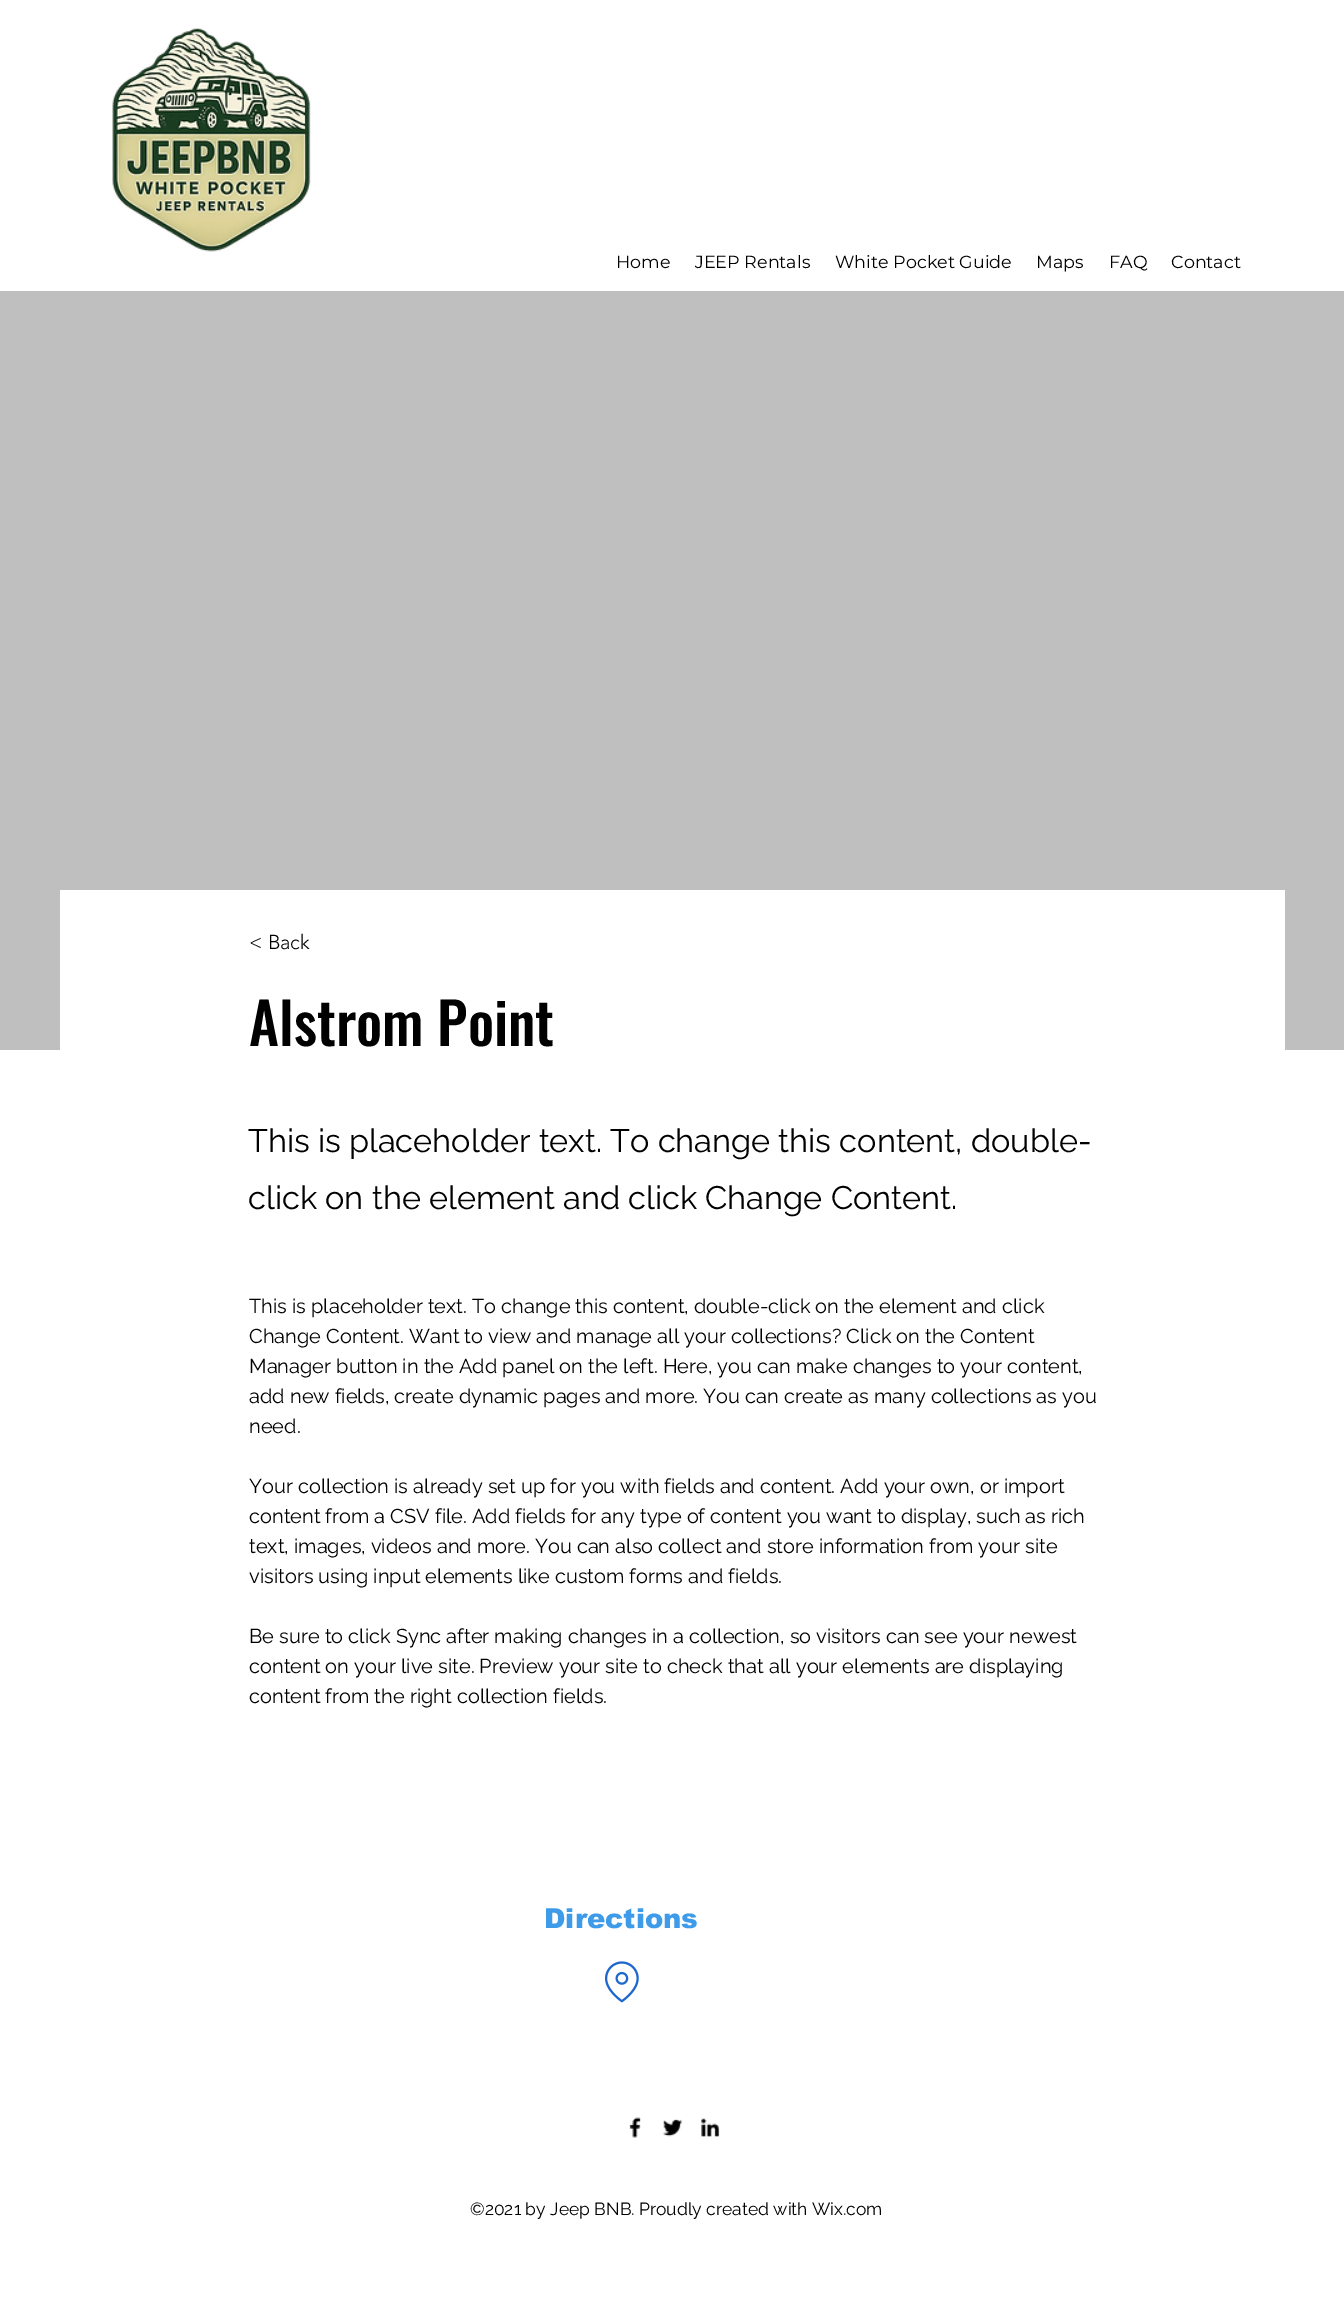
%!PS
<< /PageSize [1344 2298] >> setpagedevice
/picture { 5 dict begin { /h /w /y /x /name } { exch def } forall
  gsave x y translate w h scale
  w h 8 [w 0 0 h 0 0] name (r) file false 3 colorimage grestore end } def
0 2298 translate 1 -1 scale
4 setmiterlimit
1 setgray
0 0 1344 2298 rectfill
(img1.rgb) 112 28 199 224 picture
/Montserrat-Regular [17.5 0 0 -17.5 0 0] selectfont
0 setgray
616 268 moveto (Home) show
695 268 moveto (JEEP Rentals) show
835 268 moveto (White Pocket Guide) show
1036 268 moveto (Maps) show
1109 268 moveto (FAQ) show
1171 268 moveto (Contact) show
0.749 setgray
0 291 1344 759 rectfill
1 setgray
60 890 1225 160 rectfill
/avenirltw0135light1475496-Light [20 0 0 -20 0 0] selectfont
0 setgray
249 949 moveto (< Back) show
/Oswald-Medium [57.5 0 0 -57.5 0 0] selectfont
249 1046 moveto (Alstrom Point) show
/Raleway-Regular [32.5 0 0 -32.5 0 0] selectfont
248 1152 moveto (This is placeholder text. To change this content, double-) show
248 1209 moveto (click on the element and click Change Content.) show
/Raleway-Regular [20 0 0 -20 0 0] selectfont
249 1313 moveto (This is placeholder text. To change this content, double-click on the element and click) show
249 1343 moveto (Change Content. Want to view and manage all your collections? Click on the Content) show
249 1373 moveto (Manager button in the Add panel on the left. Here, you can make changes to your content,) show
249 1403 moveto (add new fields, create dynamic pages and more. You can create as many collections as you) show
249 1433 moveto (need.) show
249 1493 moveto (Your collection is already set up for you with fields and content. Add your own, or import) show
249 1523 moveto (content from a CSV file. Add fields for any type of content you want to display, such as rich) show
249 1553 moveto (text, images, videos and more. You can also collect and store information from your site) show
249 1583 moveto (visitors using input elements like custom forms and fields.) show
249 1643 moveto (Be sure to click Sync after making changes in a collection, so visitors can see your newest) show
249 1673 moveto (content on your live site. Preview your site to check that all your elements are displaying) show
249 1703 moveto (content from the right collection fields.) show
/arial-Black [27.5 0 0 -27.5 0 0] selectfont
0.239 0.608 0.914 setrgbcolor
544 1928 moveto (Directions) show
(img2.rgb) 604 1961 35 42 picture
(img3.rgb) 629 2117 12 21 picture
(img4.rgb) 662 2119 21 18 picture
(img5.rgb) 701 2118 19 19 picture
/Raleway-Regular [17.5 0 0 -17.5 0 0] selectfont
0 setgray
470 2215 moveto (©2021 by Jeep BNB. Proudly created with Wix.com) show
showpage
